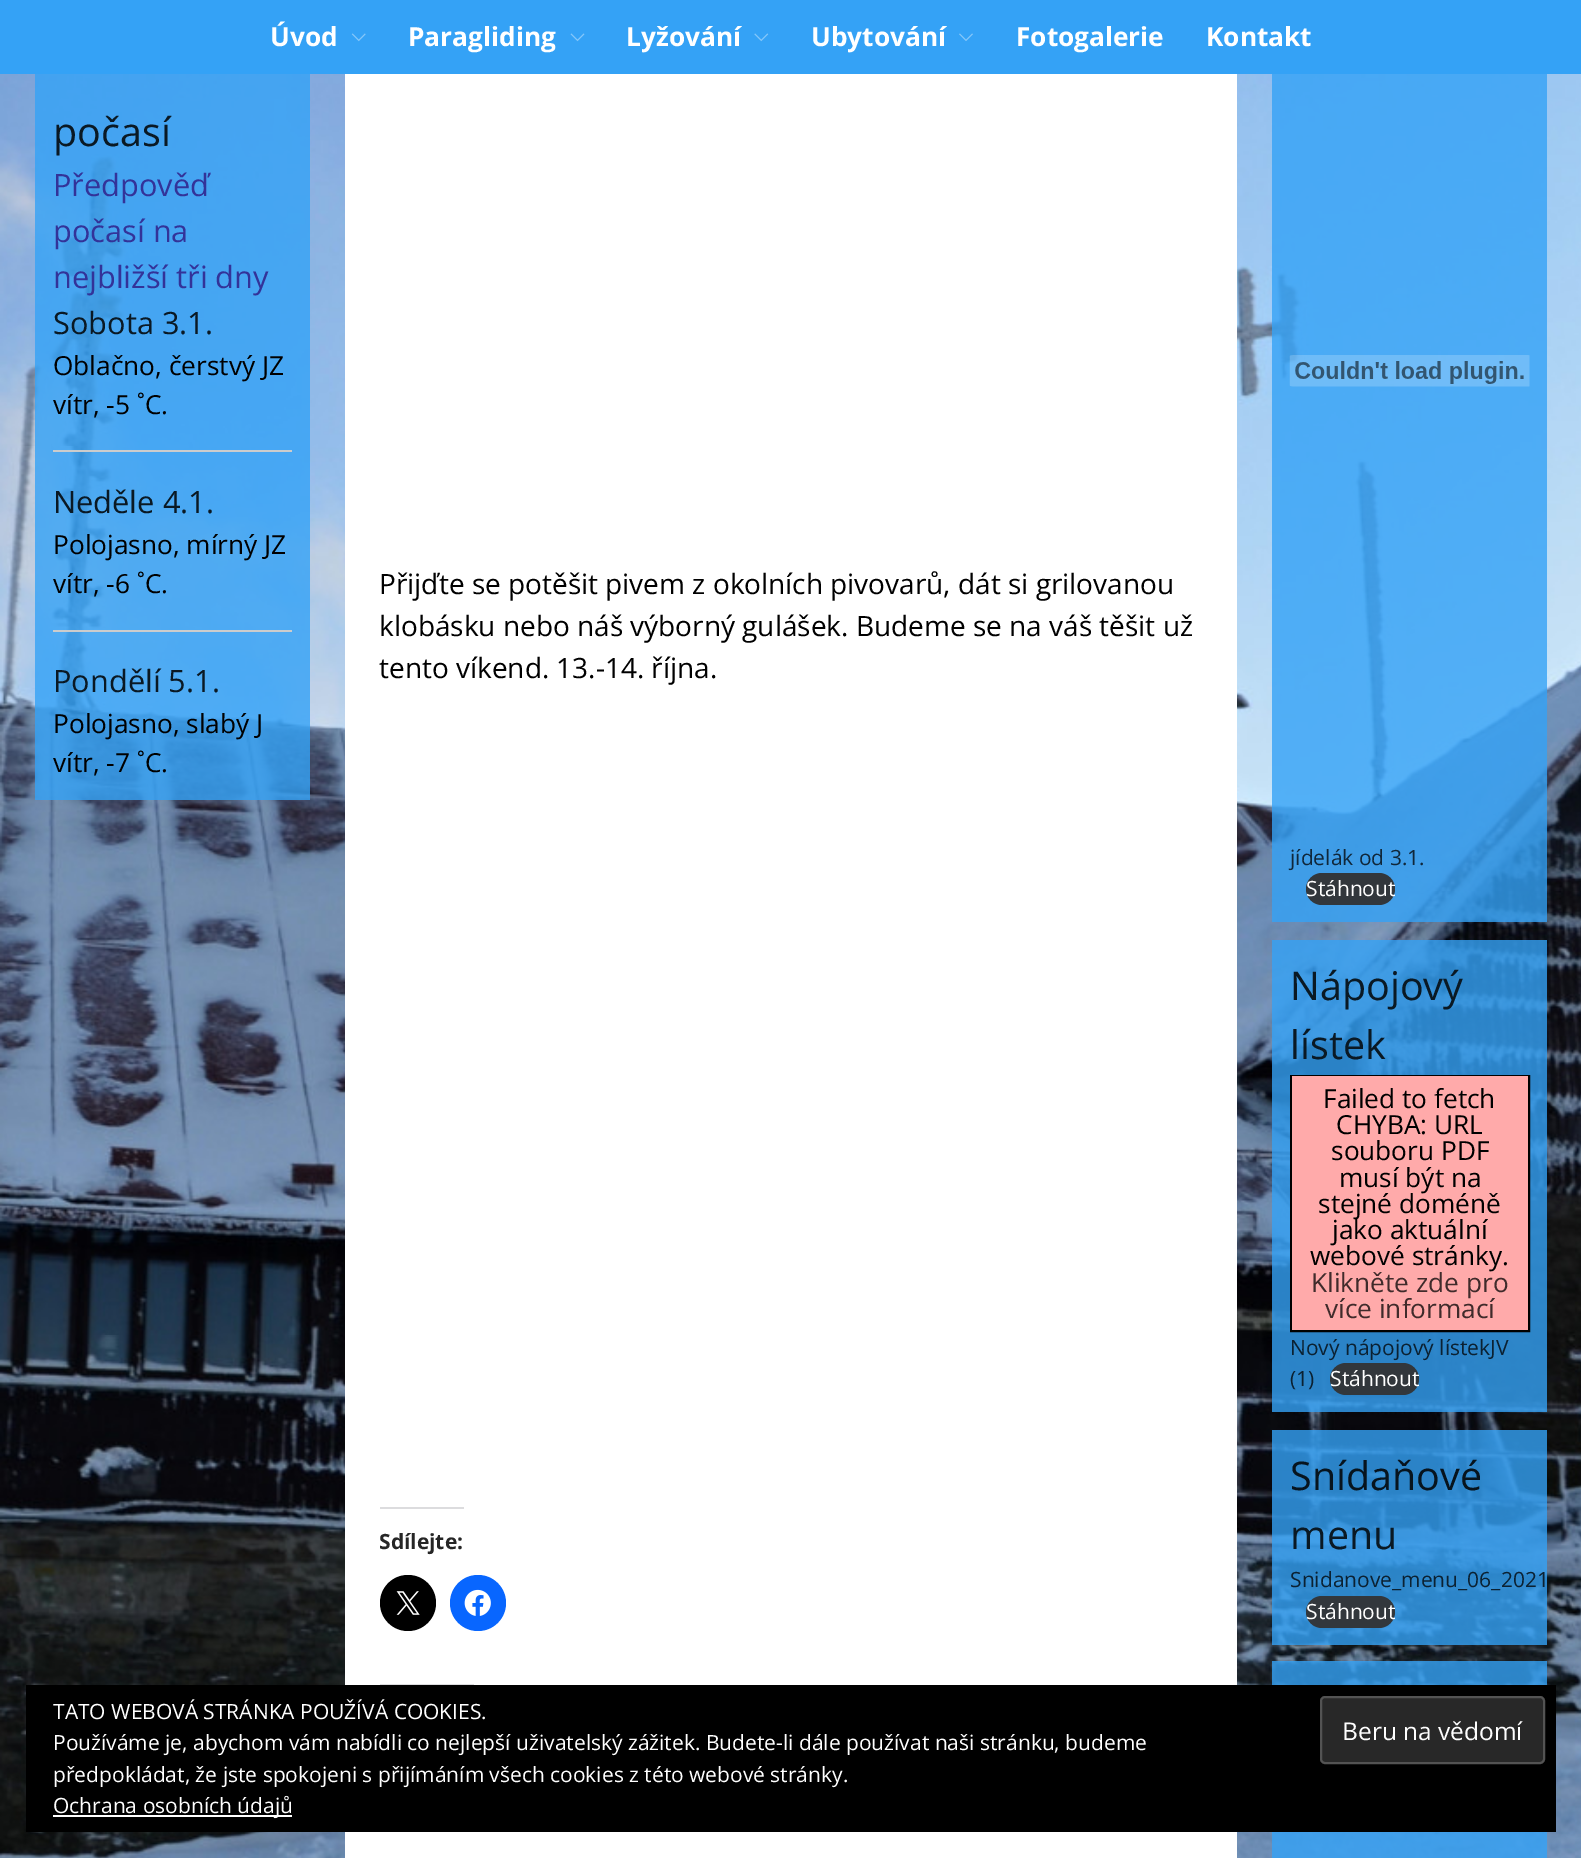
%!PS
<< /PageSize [1581 1858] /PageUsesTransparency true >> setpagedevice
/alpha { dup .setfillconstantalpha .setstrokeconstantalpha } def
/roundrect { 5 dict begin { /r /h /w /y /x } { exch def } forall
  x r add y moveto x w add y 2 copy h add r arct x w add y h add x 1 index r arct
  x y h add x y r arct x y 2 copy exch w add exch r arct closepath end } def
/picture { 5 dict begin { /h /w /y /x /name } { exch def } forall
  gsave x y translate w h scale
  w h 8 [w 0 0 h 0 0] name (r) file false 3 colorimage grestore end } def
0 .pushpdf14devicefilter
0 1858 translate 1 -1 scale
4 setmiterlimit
1 setgray
0 0 1581 1858 rectfill
0.204 0.635 0.965 setrgbcolor
0 0 1581 74 rectfill
/OpenSans-Bold [26.25 0 0 -26.25 0 0] selectfont
1 setgray
270 46 moveto (Úvod) show
(img1.rgb) 351 33 15 9 picture
408 46 moveto (Paragliding) show
(img2.rgb) 570 33 15 9 picture
626 46 moveto (Lyžování) show
(img3.rgb) 754 33 15 9 picture
811 46 moveto (Ubytování) show
(img4.rgb) 959 33 14 8 picture
1016 46 moveto (Fotogalerie) show
1206 46 moveto (Kontakt) show
(img5.rgb) 0 74 1581 1784 picture
0.8 alpha
0.204 0.635 0.965 setrgbcolor
35 74 275 726 rectfill
/OpenSans-Regular [39.5 0 0 -39.5 0 0] selectfont
1 alpha
0.039 0.098 0.141 setrgbcolor
53 146 moveto (počasí) show
/OpenSans-Regular [30.75 0 0 -30.75 0 0] selectfont
0.2 0.2 0.6 setrgbcolor
53 196 moveto (Předpověď) show
53 242 moveto (počasí na) show
53 288 moveto (nejbližší tři dny) show
0.039 0.098 0.141 setrgbcolor
53 334 moveto (Sobota 3.1.) show
/OpenSans-Regular [26.25 0 0 -26.25 0 0] selectfont
0 setgray
53 375 moveto (Oblačno, čerstvý JZ) show
53 414 moveto (vítr, -5 ˚C.) show
0.8 setgray
53 450 239 2 rectfill
/OpenSans-Regular [30.75 0 0 -30.75 0 0] selectfont
0.039 0.098 0.141 setrgbcolor
53 513 moveto (Neděle 4.1.) show
/OpenSans-Regular [26.25 0 0 -26.25 0 0] selectfont
0 setgray
53 554 moveto (Polojasno, mírný JZ) show
53 593 moveto (vítr, -6 ˚C.) show
0.8 setgray
53 630 239 2 rectfill
/OpenSans-Regular [30.75 0 0 -30.75 0 0] selectfont
0.039 0.098 0.141 setrgbcolor
53 692 moveto (Pondělí 5.1.) show
/OpenSans-Regular [26.25 0 0 -26.25 0 0] selectfont
0 setgray
53 733 moveto (Polojasno, slabý J) show
53 772 moveto (vítr, -7 ˚C.) show
1 setgray
345 74 892 1784 rectfill
/OpenSans-Regular [28 0 0 -28 0 0] selectfont
0 setgray
379 594 moveto (Přijďte se potěšit pivem z okolních pivovarů, dát si grilovanou) show
379 636 moveto (klobásku nebo náš výborný gulášek. Budeme se na váš těšit už) show
379 678 moveto (tento víkend. 13.-14. října.) show
0.863 0.863 0.871 setrgbcolor
380 1507 84 2 rectfill
/OpenSans-Bold [21 0 0 -21 0 0] selectfont
0.149 setgray
379 1549 moveto (Sdílejte:) show
0 setgray
newpath 408 1603 28 0 360 arc closepath fill
(img6.rgb) 396 1591 24 24 picture
0.031 0.4 1 setrgbcolor
newpath 478 1603 28 0 360 arc closepath fill
(img7.rgb) 464 1589 27 27 picture
0.863 0.863 0.871 setrgbcolor
380 1684 94 1 rectfill
0.8 alpha
0.204 0.635 0.965 setrgbcolor
1272 74 275 848 rectfill
1 alpha
(img8.rgb) 1289 355 241 32 picture
/OpenSans-Regular [21 0 0 -21 0 0] selectfont
0.063 0.153 0.227 setrgbcolor
1290 865 moveto (jídelák od 3.1.) show
0.196 0.216 0.235 setrgbcolor
1306 873 89 32 16 roundrect fill
1 setgray
1306 896 moveto (Stáhnout) show
0.8 alpha
0.204 0.635 0.965 setrgbcolor
1272 940 275 472 rectfill
/OpenSans-Regular [39.5 0 0 -39.5 0 0] selectfont
1 alpha
0.039 0.098 0.141 setrgbcolor
1290 1000 moveto (Nápojový) show
1290 1059 moveto (lístek) show
0 setgray
2 setlinewidth
1291 1076 238 255 rectstroke
1 0.667 0.667 setrgbcolor
1292 1076 236 254 rectfill
/OpenSans-Regular [26.25 0 0 -26.25 0 0] selectfont
0 setgray
1323 1108 moveto (Failed to fetch) show
1336 1134 moveto (CHYBA: URL) show
1331 1160 moveto (souboru PDF) show
1339 1187 moveto (musí být na) show
1318 1213 moveto (stejné doméně) show
1332 1239 moveto (jako aktuální) show
1310 1265 moveto (webové stránky.) show
0.251 0.169 0.169 setrgbcolor
1311 1292 moveto (Klikněte zde pro) show
1325 1318 moveto (více informací) show
/OpenSans-Regular [21 0 0 -21 0 0] selectfont
0.043 0.129 0.196 setrgbcolor
1290 1355 moveto (Nový nápojový lístekJV) show
1290 1386 moveto (\(1\)) show
0.196 0.216 0.235 setrgbcolor
1330 1363 89 32 16 roundrect fill
1 setgray
1330 1386 moveto (Stáhnout) show
0.8 alpha
0.204 0.635 0.965 setrgbcolor
1272 1430 275 215 rectfill
/OpenSans-Regular [39.5 0 0 -39.5 0 0] selectfont
1 alpha
0.027 0.078 0.118 setrgbcolor
1290 1490 moveto (Snídaňové) show
0.039 0.098 0.141 setrgbcolor
1290 1549 moveto (menu) show
/OpenSans-Regular [21 0 0 -21 0 0] selectfont
0.043 0.129 0.196 setrgbcolor
1290 1587 moveto (Snidanove_menu_06_2021) show
0.196 0.216 0.235 setrgbcolor
1306 1596 89 32 16 roundrect fill
1 setgray
1306 1619 moveto (Stáhnout) show
0.8 alpha
0.204 0.635 0.965 setrgbcolor
1272 1661 275 197 rectfill
1 alpha
0 setgray
26 1685 1530 147 rectfill
1 setgray
53 1719 moveto (TATO WEBOVÁ STRÁNKA POUŽÍVÁ COOKIES.) show
0.157 setgray
1321 1697 223 66 4 roundrect gsave fill grestore
0.325 setgray
stroke
/OpenSans-Regular [24.5 0 0 -24.5 0 0] selectfont
1 setgray
1342 1740 moveto (Beru na vědomí) show
/OpenSans-Regular [21 0 0 -21 0 0] selectfont
53 1750 moveto (Používáme je, abychom vám nabídli co nejlepší uživatelský zážitek. Budete-li dále používat naši stránku, budeme) show
53 1782 moveto (předpokládat, že jste spokojeni s přijímáním všech cookies z této webové stránky.) show
53 1815 239 2 rectfill
53 1813 moveto (Ochrana osobních údajů) show
.poppdf14devicefilter showpage
